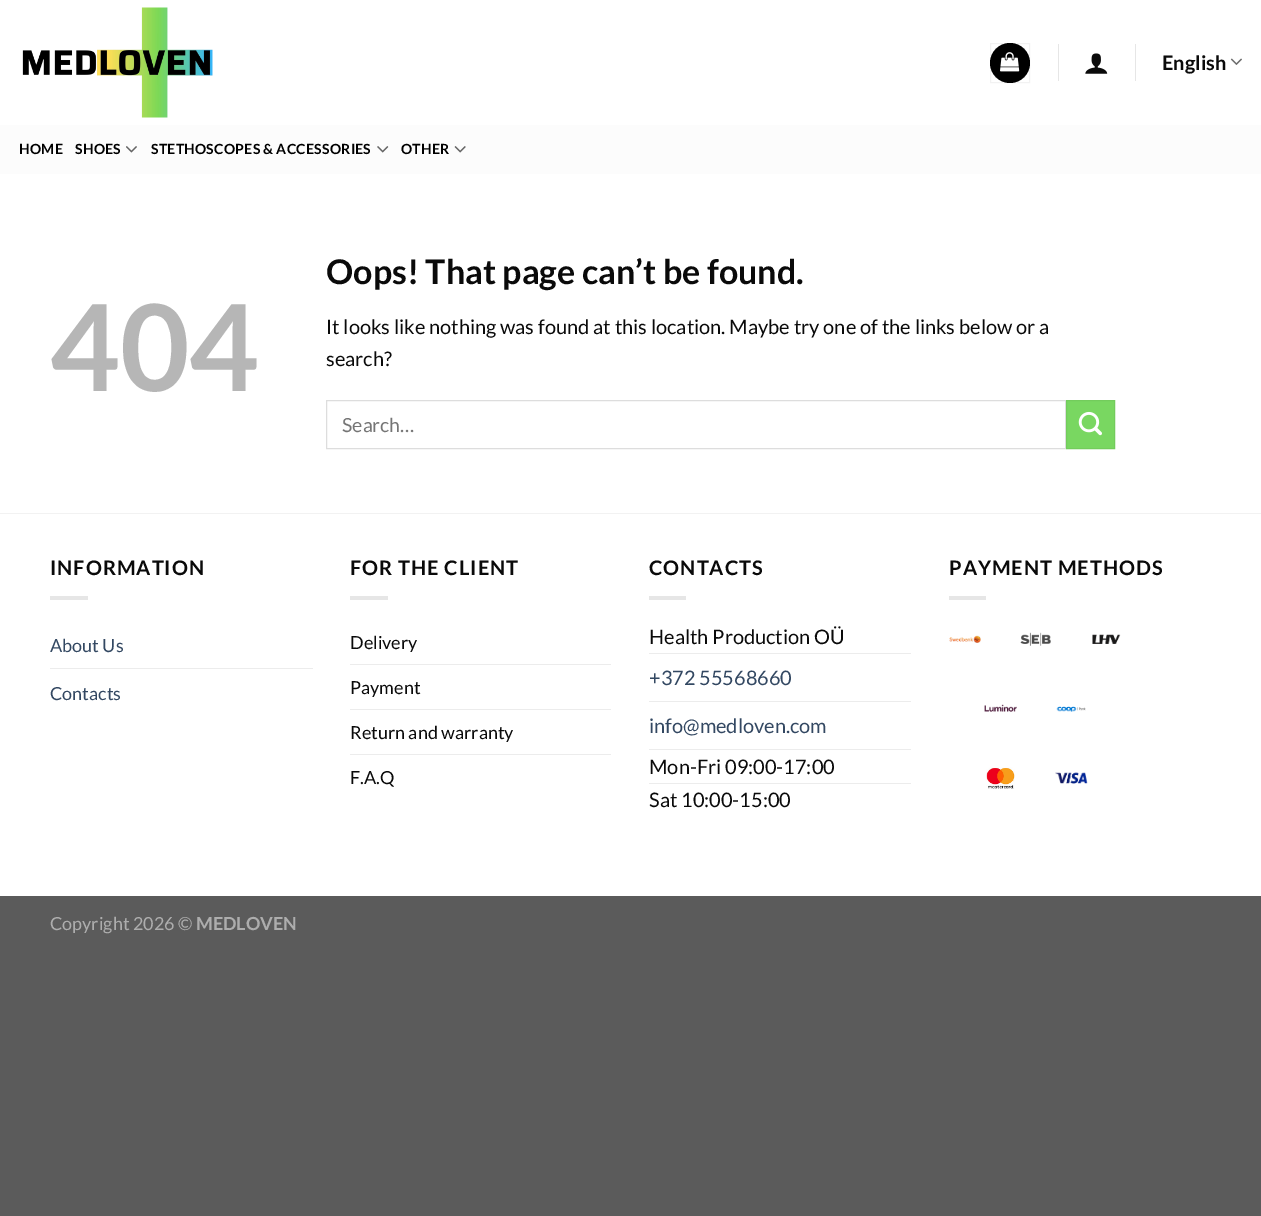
%!PS
<< /PageSize [1261 1216] /PageUsesTransparency true >> setpagedevice
/alpha { dup .setfillconstantalpha .setstrokeconstantalpha } def
/picture { 5 dict begin { /h /w /y /x /name } { exch def } forall
  gsave x y translate w h scale
  w h 8 [w 0 0 h 0 0] name (r) file false 3 colorimage grestore end } def
0 .pushpdf14devicefilter
0 1216 translate 1 -1 scale
4 setmiterlimit
0.357 setgray
0 0 1261 1216 rectfill
1 setgray
0 0 1261 896 rectfill
(img1.rgb) 22 7 191 111 picture
0 setgray
newpath 1010 63 20 0 360 arc closepath fill
0.05 alpha
990.5 43.5 39 39 rectstroke
1 alpha
(img2.rgb) 1000 52 20 20 picture
0.902 setgray
1058 44 1 37 rectfill
(img3.rgb) 1085 53 23 21 picture
1135 44 1 37 rectfill
/Lato-Bold [20 0 0 -20 0 0] selectfont
0.039 setgray
1162 70 moveto (English) show
(img4.rgb) 1230 58 12 7 picture
0.988 setgray
0 125 1261 49 rectfill
/Lato-Bold [14 0 0 -14 0 0] selectfont
0 setgray
19 154 moveto 0.25 0 (HOME) ashow
75 154 moveto 0.25 0 (SHOES) ashow
(img5.rgb) 126 146 11 7 picture
151 154 moveto 0.25 0 (STETHOSCOPES & ACCESSORIES) ashow
(img6.rgb) 377 146 12 7 picture
401 154 moveto 0.25 0 (OTHER) ashow
(img7.rgb) 454 146 12 7 picture
/Lato-Bold [120 0 0 -120 0 0] selectfont
0.714 setgray
50 391 moveto (404) show
/Lato-Bold [34 0 0 -34 0 0] selectfont
0.039 setgray
326 284 moveto (Oops! That page can’t be found.) show
/Lato-Regular [20 0 0 -20 0 0] selectfont
326 334 moveto (It looks like nothing was found at this location. Maybe try one of the links below or a) show
326 366 moveto (search?) show
0.867 setgray
326.5 400.5 739 48 rectstroke
/Lato-Regular [19.5 0 0 -19.5 0 0] selectfont
0.459 setgray
342 432 moveto (Search…) show
0.475 0.843 0.38 setrgbcolor
newpath 1066.5 400.5 moveto 1114.5 400.5 lineto 1114.5 448.5 lineto 1066.5 448.5 lineto closepath gsave fill grestore
0.451 0.8 0.361 setrgbcolor
stroke
(img8.rgb) 1078 411 24 25 picture
0.949 setgray
0 513 1261 1 rectfill
/Lato-Bold [20 0 0 -20 0 0] selectfont
0.039 setgray
50 575 moveto 1 0 (INFORMATION) ashow
0.902 setgray
50 596 38 4 rectfill
/Lato-Regular [18 0 0 -18 0 0] selectfont
0.2 0.282 0.384 setrgbcolor
50 652 moveto (About Us) show
0.925 setgray
50 668 263 1 rectfill
0.2 0.282 0.384 setrgbcolor
50 700 moveto (Contacts) show
/Lato-Bold [20 0 0 -20 0 0] selectfont
0.039 setgray
350 575 moveto 1 0 (FOR THE CLIENT) ashow
0.902 setgray
350 596 38 4 rectfill
/Lato-Regular [18 0 0 -18 0 0] selectfont
0.039 setgray
350 649 moveto (Delivery) show
0.925 setgray
350 664 261 1 rectfill
0.039 setgray
350 694 moveto (Payment) show
0.925 setgray
350 709 261 1 rectfill
0.039 setgray
350 739 moveto (Return and warranty) show
0.925 setgray
350 754 261 1 rectfill
0.039 setgray
350 784 moveto (F.A.Q) show
/Lato-Bold [20 0 0 -20 0 0] selectfont
649 575 moveto 1 0 (CONTACTS) ashow
0.902 setgray
649 596 37 4 rectfill
/Lato-Regular [20 0 0 -20 0 0] selectfont
0.039 setgray
649 644 moveto (Health Production OÜ) show
0.925 setgray
649 653 262 1 rectfill
0.2 0.282 0.384 setrgbcolor
649 685 moveto (+372 55568660) show
0.925 setgray
649 701 262 1 rectfill
0.2 0.282 0.384 setrgbcolor
649 733 moveto (info@medloven.com) show
0.925 setgray
649 749 262 1 rectfill
0.039 setgray
649 774 moveto (Mon-Fri 09:00-17:00) show
0.925 setgray
649 783 262 1 rectfill
0.039 setgray
649 807 moveto (Sat 10:00-15:00) show
/Lato-Bold [20 0 0 -20 0 0] selectfont
949 575 moveto 1 0 (PAYMENT METHODS) ashow
0.902 setgray
949 596 37 4 rectfill
(img9.rgb) 949 635 32 8 picture
(img10.rgb) 1020 632 31 14 picture
(img11.rgb) 1092 634 29 10 picture
(img12.rgb) 984 704 33 8 picture
(img13.rgb) 1056 706 30 6 picture
(img14.rgb) 986 767 29 22 picture
(img15.rgb) 1055 772 33 12 picture
/Lato-Regular [18 0 0 -18 0 0] selectfont
0.678 setgray
50 930 moveto (Copyright 2026 ©) show
/Lato-Bold [18 0 0 -18 0 0] selectfont
196 930 moveto (MEDLOVEN) show
.poppdf14devicefilter showpage
